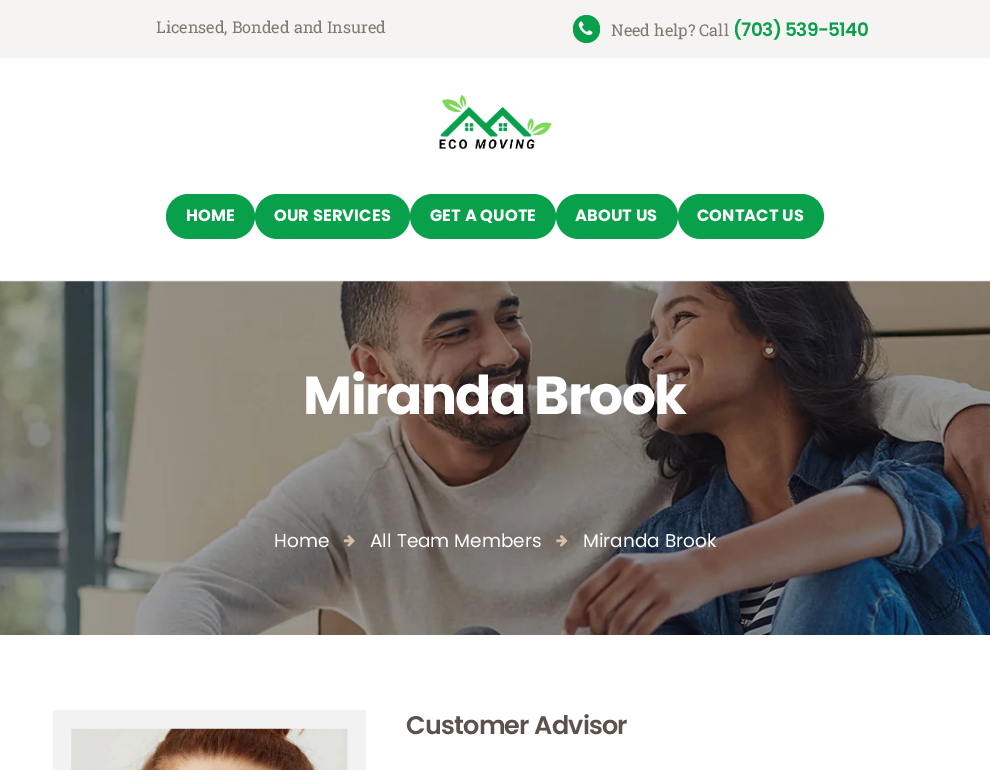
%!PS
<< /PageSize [990 770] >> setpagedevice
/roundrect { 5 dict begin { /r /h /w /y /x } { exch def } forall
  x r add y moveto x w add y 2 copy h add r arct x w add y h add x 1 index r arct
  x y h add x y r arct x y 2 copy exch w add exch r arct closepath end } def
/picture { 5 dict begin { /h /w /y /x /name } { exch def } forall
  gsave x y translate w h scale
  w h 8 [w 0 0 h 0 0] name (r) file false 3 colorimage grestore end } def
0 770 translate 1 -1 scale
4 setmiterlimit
1 setgray
0 0 990 770 rectfill
0.961 0.957 0.949 setrgbcolor
0 0 990 58 rectfill
/RobotoSlab-Regular [16.25 0 0 -16.25 0 0] selectfont
0.51 0.478 0.439 setrgbcolor
156 33 moveto (Licensed, Bonded and Insured) show
0.031 0.627 0.294 setrgbcolor
573 15 27 28 13.5 roundrect fill
(img1.rgb) 578 21 15 15 picture
0.51 0.478 0.439 setrgbcolor
611 36 moveto (Need help? Call) show
/Poppins-SemiBold [18.5 0 0 -18.5 0 0] selectfont
0.031 0.627 0.294 setrgbcolor
733 36 moveto -0.6 0 (\(703\) 539-5140) ashow
0.953 0.949 0.949 setrgbcolor
0 280 990 1 rectfill
(img2.rgb) 439 94 113 55 picture
0.031 0.627 0.294 setrgbcolor
166 194 89 45 22.5 roundrect fill
/Poppins-Bold [16.25 0 0 -16.25 0 0] selectfont
1 setgray
186 221 moveto 0.1 0 (HOME) ashow
0.031 0.627 0.294 setrgbcolor
255 194 155 45 22.5 roundrect fill
1 setgray
274 221 moveto 0.1 0 (OUR SERVICES) ashow
0.031 0.627 0.294 setrgbcolor
410 194 146 45 22.5 roundrect fill
1 setgray
430 221 moveto 0.1 0 (GET A QUOTE) ashow
0.031 0.627 0.294 setrgbcolor
556 194 122 45 22.5 roundrect fill
1 setgray
575 221 moveto 0.1 0 (ABOUT US) ashow
0.031 0.627 0.294 setrgbcolor
678 194 146 45 22.5 roundrect fill
1 setgray
697 221 moveto 0.1 0 (CONTACT US) ashow
(img3.rgb) 0 281 990 354 picture
/Poppins-Bold [53.5 0 0 -53.5 0 0] selectfont
303 414 moveto -1.6 0 (Miranda Brook) ashow
/Poppins-Regular [18.5 0 0 -18.5 0 0] selectfont
274 547 moveto (Home) show
(img4.rgb) 343 535 12 12 picture
370 547 moveto (All Team Members) show
(img5.rgb) 556 535 12 12 picture
583 547 moveto (Miranda Brook) show
0.953 0.949 0.949 setrgbcolor
19 setlinewidth
62.5 719.5 294 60 rectstroke
(img6.rgb) 71 728 277 42 picture
/Poppins-SemiBold [25.5 0 0 -25.5 0 0] selectfont
0.361 0.322 0.294 setrgbcolor
406 734 moveto -0.8 0 (Customer Advisor) ashow
showpage
